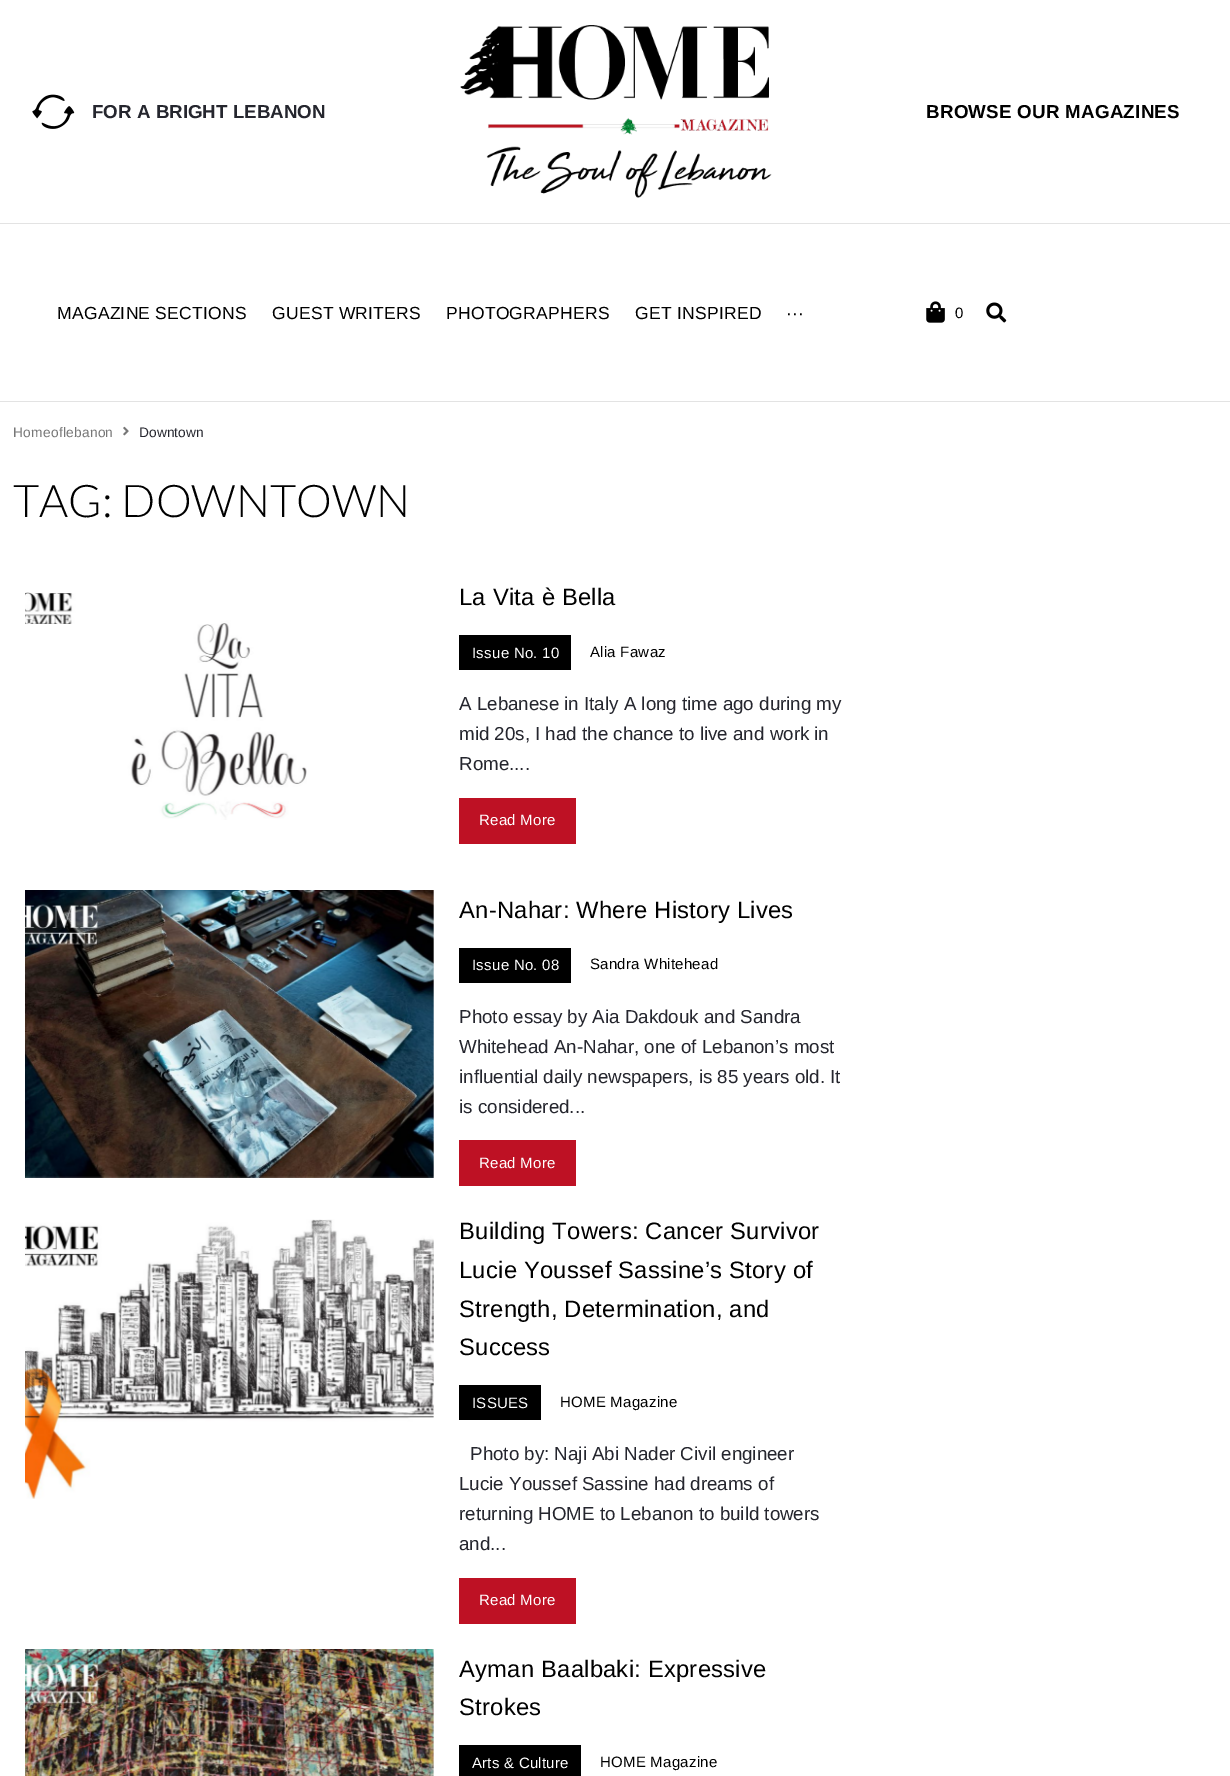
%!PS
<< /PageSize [1230 1776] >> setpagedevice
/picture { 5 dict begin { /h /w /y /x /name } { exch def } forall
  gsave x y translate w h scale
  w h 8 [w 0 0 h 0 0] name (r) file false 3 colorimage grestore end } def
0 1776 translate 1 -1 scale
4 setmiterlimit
1 setgray
0 0 1230 1776 rectfill
(img1.rgb) 32 94 43 35 picture
/LiberationSans-Bold [18.75 0 0 -18.75 0 0] selectfont
0.145 0.149 0.18 setrgbcolor
92 118 moveto (FOR A BRIGHT LEBANON) show
(img2.rgb) 460 25 312 173 picture
0 setgray
926 118 moveto 0.25 0 (BROWSE OUR MAGAZINES) ashow
0.89 setgray
0 223 1230 1 rectfill
0 401 1230 1 rectfill
/LiberationSans-Regular [17.5 0 0 -17.5 0 0] selectfont
0 setgray
57 319 moveto 0.25 0 (MAGAZINE SECTIONS) ashow
272 319 moveto 0.25 0 (GUEST WRITERS) ashow
446 319 moveto 0.25 0 (PHOTOGRAPHERS) ashow
635 319 moveto 0.25 0 (GET INSPIRED) ashow
786 319 moveto 0.25 0 (···) ashow
(img3.rgb) 926 301 19 22 picture
/LiberationSans-Regular [15 0 0 -15 0 0] selectfont
955 318 moveto 0.25 0 (0) ashow
(img4.rgb) 986 302 21 21 picture
/LiberationSans-Regular [13.75 0 0 -13.75 0 0] selectfont
0.467 setgray
13 437 moveto 0.25 0 (Homeoflebanon) ashow
(img5.rgb) 123 426 6 10 picture
0.145 0.149 0.18 setrgbcolor
139 437 moveto (Downtown) show
/Lato-Light [45 0 0 -45 0 0] selectfont
0 setgray
13 517 moveto (TAG: DOWNTOWN) show
(img6.rgb) 25 592 282 228 picture
/LiberationSans-Regular [23.75 0 0 -23.75 0 0] selectfont
459 605 moveto 0.25 0 (La Vita è Bella) ashow
459 635 112 35 rectfill
/LiberationSans-Regular [15 0 0 -15 0 0] selectfont
1 setgray
472 658 moveto 0.25 0 (Issue No. 10) ashow
0 setgray
590 657 moveto 0.25 0 (Alia Fawaz) ashow
/LiberationSans-Regular [18.75 0 0 -18.75 0 0] selectfont
0.145 0.149 0.18 setrgbcolor
459 710 moveto (A Lebanese in Italy A long time ago during my) show
459 740 moveto (mid 20s, I had the chance to live and work in) show
459 770 moveto (Rome....) show
0.745 0.067 0.141 setrgbcolor
459 798 117 46 rectfill
/LiberationSans-Regular [15 0 0 -15 0 0] selectfont
1 setgray
479 825 moveto 0.25 0 (Read More) ashow
(img7.rgb) 25 890 409 288 picture
/LiberationSans-Regular [23.75 0 0 -23.75 0 0] selectfont
0 setgray
459 918 moveto 0.25 0 (An-Nahar: Where History Lives) ashow
459 948 112 35 rectfill
/LiberationSans-Regular [15 0 0 -15 0 0] selectfont
1 setgray
472 970 moveto 0.25 0 (Issue No. 08) ashow
0 setgray
590 969 moveto 0.25 0 (Sandra Whitehead) ashow
/LiberationSans-Regular [18.75 0 0 -18.75 0 0] selectfont
0.145 0.149 0.18 setrgbcolor
459 1023 moveto (Photo essay by Aia Dakdouk and Sandra) show
459 1053 moveto (Whitehead An-Nahar, one of Lebanon’s most) show
459 1083 moveto (influential daily newspapers, is 85 years old. It) show
459 1113 moveto (is considered...) show
0.745 0.067 0.141 setrgbcolor
459 1140 117 46 rectfill
/LiberationSans-Regular [15 0 0 -15 0 0] selectfont
1 setgray
479 1168 moveto 0.25 0 (Read More) ashow
(img8.rgb) 25 1219 409 280 picture
/LiberationSans-Regular [23.75 0 0 -23.75 0 0] selectfont
0 setgray
459 1239 moveto 0.25 0 (Building Towers: Cancer Survivor) ashow
459 1278 moveto 0.25 0 (Lucie Youssef Sassine’s Story of) ashow
459 1317 moveto 0.25 0 (Strength, Determination, and) ashow
459 1355 moveto 0.25 0 (Success) ashow
459 1385 82 35 rectfill
/LiberationSans-Regular [15 0 0 -15 0 0] selectfont
1 setgray
472 1408 moveto 0.25 0 (ISSUES) ashow
0 setgray
560 1407 moveto 0.25 0 (HOME Magazine) ashow
/LiberationSans-Regular [18.75 0 0 -18.75 0 0] selectfont
0.145 0.149 0.18 setrgbcolor
470 1460 moveto (Photo by: Naji Abi Nader Civil engineer) show
459 1490 moveto (Lucie Youssef Sassine had dreams of) show
459 1520 moveto (returning HOME to Lebanon to build towers) show
459 1550 moveto (and...) show
0.745 0.067 0.141 setrgbcolor
459 1578 117 46 rectfill
/LiberationSans-Regular [15 0 0 -15 0 0] selectfont
1 setgray
479 1605 moveto 0.25 0 (Read More) ashow
(img9.rgb) 25 1649 409 127 picture
/LiberationSans-Regular [23.75 0 0 -23.75 0 0] selectfont
0 setgray
459 1677 moveto 0.25 0 (Ayman Baalbaki: Expressive) ashow
459 1715 moveto 0.25 0 (Strokes) ashow
459 1745 122 31 rectfill
/LiberationSans-Regular [15 0 0 -15 0 0] selectfont
1 setgray
472 1768 moveto 0.25 0 (Arts & Culture) ashow
0 setgray
600 1767 moveto 0.25 0 (HOME Magazine) ashow
showpage
